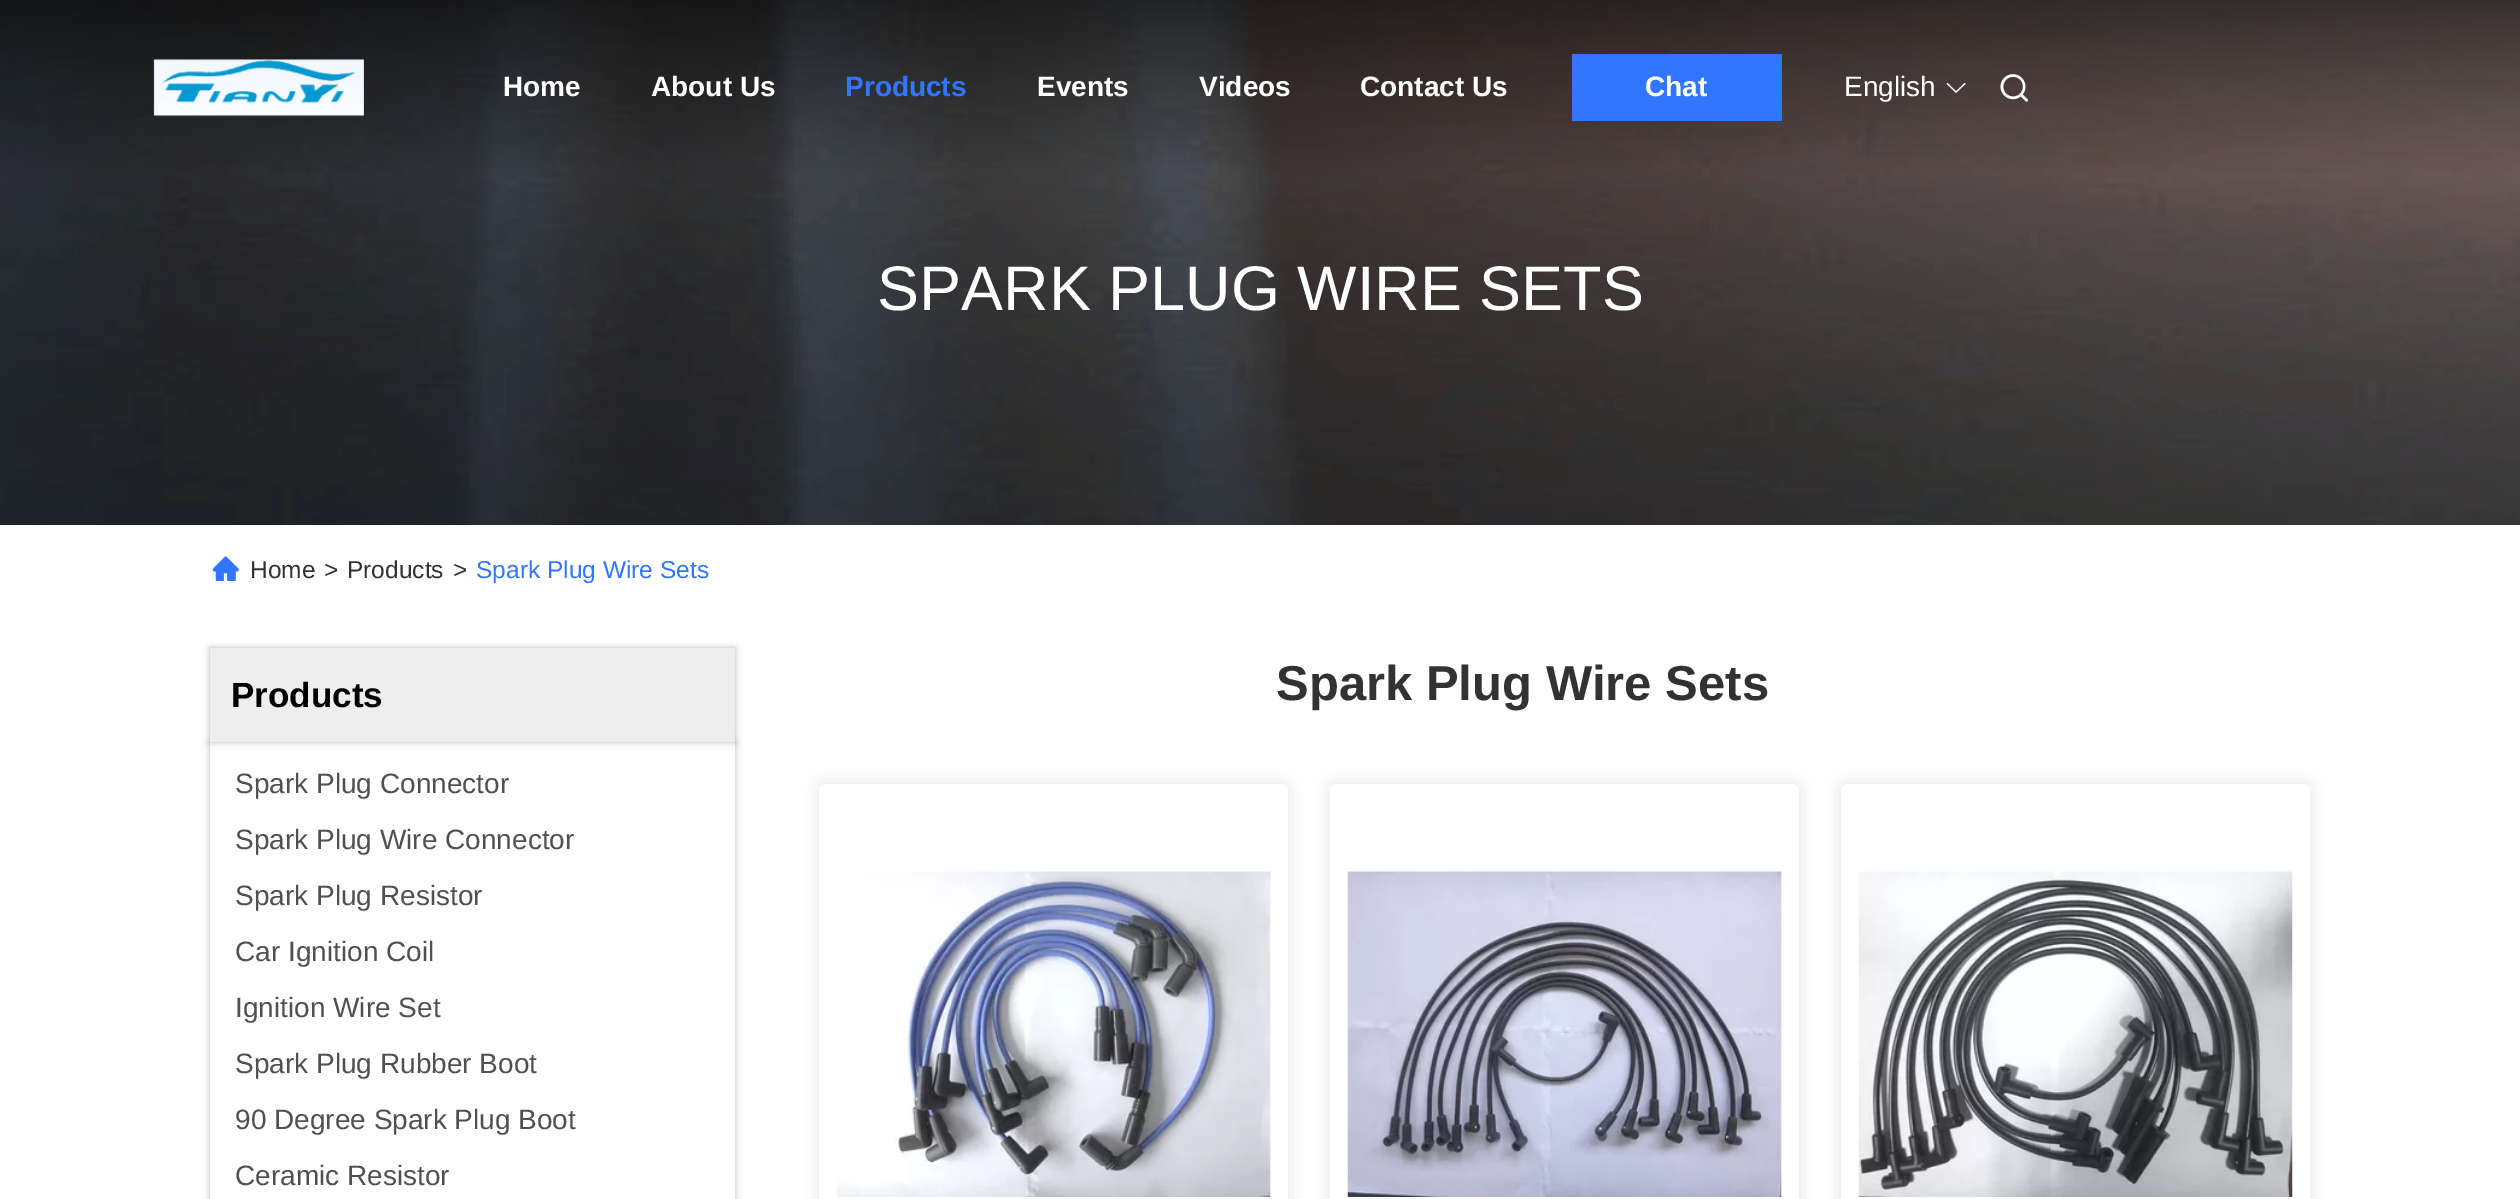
%!PS
<< /PageSize [2520 1199] /PageUsesTransparency true >> setpagedevice
/alpha { dup .setfillconstantalpha .setstrokeconstantalpha } def
/roundrect { 5 dict begin { /r /h /w /y /x } { exch def } forall
  x r add y moveto x w add y 2 copy h add r arct x w add y h add x 1 index r arct
  x y h add x y r arct x y 2 copy exch w add exch r arct closepath end } def
/shadow { 12 dict begin { /a /b /q /h /w /y /x } { exch def } forall gsave /was 0 def
  9 -2 -9 { dup b mul 4 div /e exch def 1 sub .425 mul 2.718 exch exp 1 add a .99 .min exch div /now exch def
    1 1 now sub 1 was sub div sub alpha /was now def
    w h .min e 2 mul add 0 gt { x e sub y e sub w e 2 mul add h e 2 mul add
      q e add b .6 mul add w h .min 2 div e add .min 0 .max roundrect fill } if } for grestore end } def
/picture { 5 dict begin { /h /w /y /x /name } { exch def } forall
  gsave x y translate w h scale
  w h 8 [w 0 0 h 0 0] name (r) file false 3 colorimage grestore end } def
0 .pushpdf14devicefilter
0 1199 translate 1 -1 scale
4 setmiterlimit
1 setgray
0 0 2520 1199 rectfill
(img4.rgb) 0 0 2520 525 picture
(img1.rgb) 153 59 211 58 picture
/LiberationSans-Bold [28 0 0 -28 0 0] selectfont
503 96 moveto (Home) show
651 96 moveto (About Us) show
0.192 0.463 1 setrgbcolor
845 96 moveto (Products) show
1 setgray
1037 96 moveto (Events) show
1199 96 moveto (Videos) show
1360 96 moveto (Contact Us) show
0.192 0.463 1 setrgbcolor
1572 54 210 67 rectfill
1 setgray
1645 96 moveto (Chat) show
/LiberationSans-Regular [28 0 0 -28 0 0] selectfont
1844 96 moveto (English) show
(img2.rgb) 1946 83 20 10 picture
(img3.rgb) 2000 74 28 28 picture
/LiberationSans-Regular [63 0 0 -63 0 0] selectfont
877 310 moveto (SPARK PLUG WIRE SETS) show
(img5.rgb) 212 556 27 25 picture
/LiberationSans-Regular [24.5 0 0 -24.5 0 0] selectfont
0.196 setgray
250 578 moveto (Home) show
324 578 moveto (>) show
347 578 moveto (Products) show
453 578 moveto (>) show
0.192 0.463 1 setrgbcolor
476 578 moveto (Spark Plug Wire Sets) show
0 setgray
210 648 525 94 0 3.5 0.25 shadow
gsave
newpath 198 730 moveto 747 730 lineto 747 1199 lineto 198 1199 lineto closepath 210 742 moveto 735 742 lineto 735 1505 lineto 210 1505 lineto closepath eoclip newpath
210 742 525 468 0 3.5 0.25 shadow
grestore
0.933 setgray
210 648 525 94 rectfill
/LiberationSans-Bold [35 0 0 -35 0 0] selectfont
0 setgray
231 707 moveto (Products) show
/LiberationSans-Regular [28 0 0 -28 0 0] selectfont
0.314 setgray
235 793 moveto (Spark Plug Connector) show
235 849 moveto (Spark Plug Wire Connector) show
235 905 moveto (Spark Plug Resistor) show
235 961 moveto (Car Ignition Coil) show
235 1017 moveto (Ignition Wire Set) show
235 1073 moveto (Spark Plug Rubber Boot) show
235 1129 moveto (90 Degree Spark Plug Boot) show
235 1185 moveto (Ceramic Resistor) show
/LiberationSans-Bold [49 0 0 -49 0 0] selectfont
0.196 setgray
1276 700 moveto (Spark Plug Wire Sets) show
gsave
newpath 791 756 moveto 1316 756 lineto 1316 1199 lineto 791 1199 lineto closepath 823 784 moveto 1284 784 lineto 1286 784 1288 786 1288 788 curveto 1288 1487 lineto 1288 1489 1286 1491 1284 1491 curveto 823 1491 lineto 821 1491 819 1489 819 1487 curveto 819 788 lineto 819 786 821 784 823 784 curveto closepath eoclip newpath
0 setgray
819 784 469 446 4 9 0.1 shadow
grestore
(img6.rgb) 836 871 435 326 picture
gsave
newpath 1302 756 moveto 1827 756 lineto 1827 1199 lineto 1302 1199 lineto closepath 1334 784 moveto 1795 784 lineto 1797 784 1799 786 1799 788 curveto 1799 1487 lineto 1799 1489 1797 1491 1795 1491 curveto 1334 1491 lineto 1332 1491 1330 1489 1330 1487 curveto 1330 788 lineto 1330 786 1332 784 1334 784 curveto closepath eoclip newpath
0 setgray
1330 784 469 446 4 9 0.1 shadow
grestore
(img7.rgb) 1347 871 435 326 picture
gsave
newpath 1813 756 moveto 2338 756 lineto 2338 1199 lineto 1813 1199 lineto closepath 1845 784 moveto 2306 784 lineto 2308 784 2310 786 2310 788 curveto 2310 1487 lineto 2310 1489 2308 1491 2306 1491 curveto 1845 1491 lineto 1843 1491 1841 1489 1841 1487 curveto 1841 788 lineto 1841 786 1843 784 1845 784 curveto closepath eoclip newpath
0 setgray
1841 784 469 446 4 9 0.1 shadow
grestore
(img8.rgb) 1858 871 435 326 picture
.poppdf14devicefilter showpage
